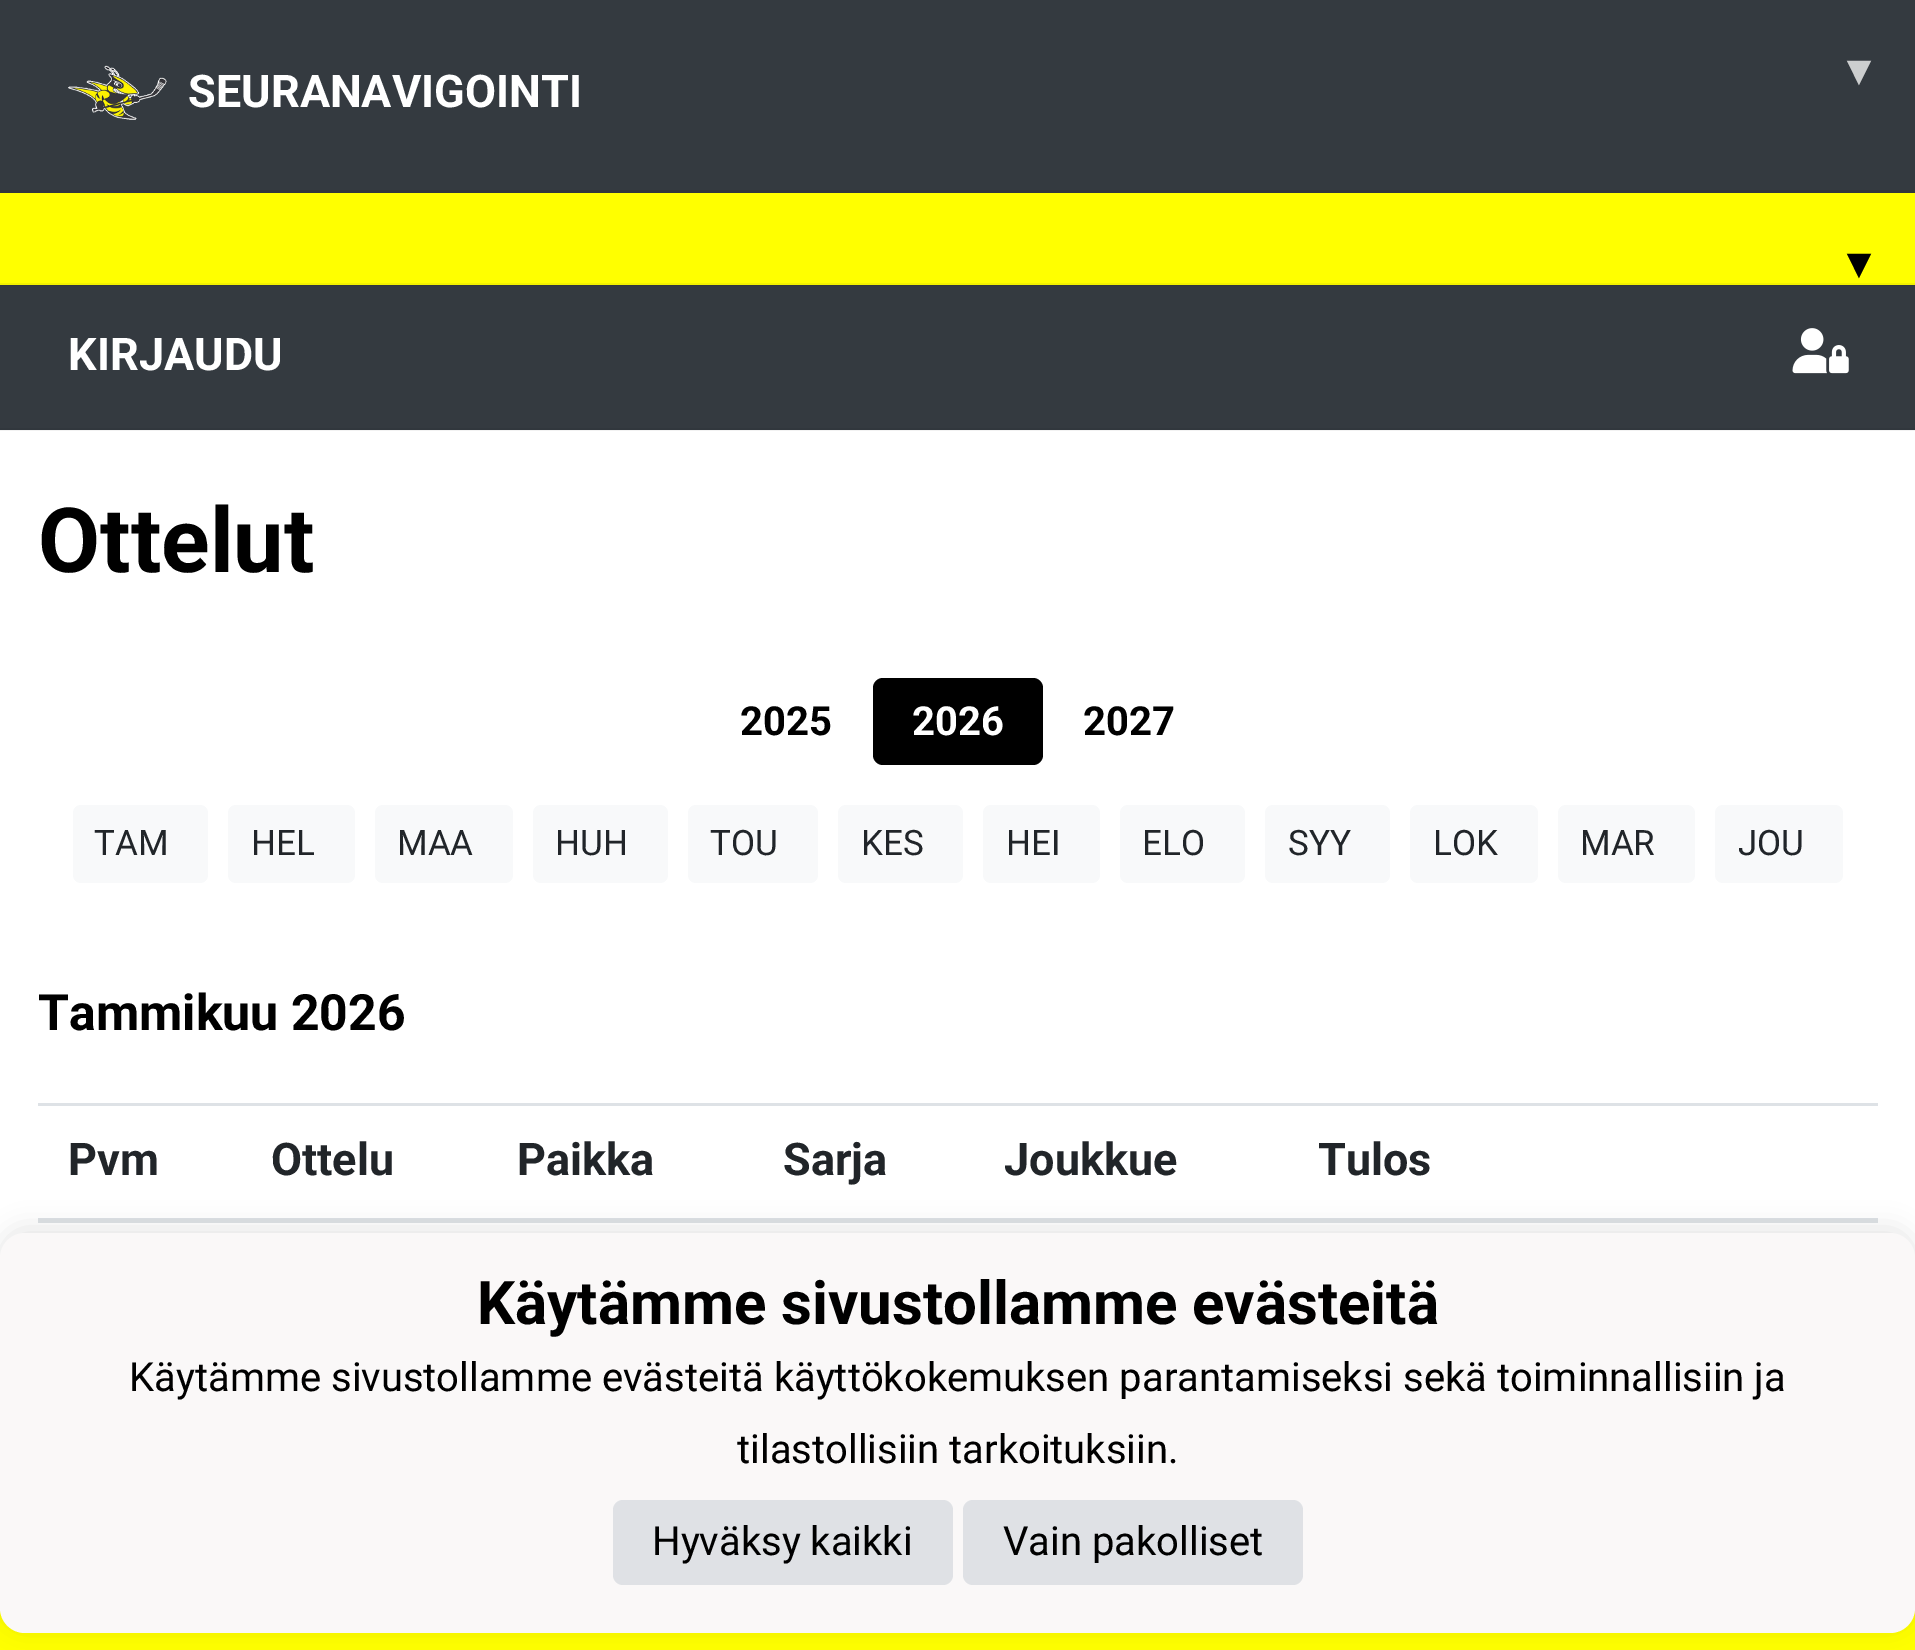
%!PS
<< /PageSize [1915 1650] /PageUsesTransparency true >> setpagedevice
/alpha { dup .setfillconstantalpha .setstrokeconstantalpha } def
/roundrect { 5 dict begin { /r /h /w /y /x } { exch def } forall
  x r add y moveto x w add y 2 copy h add r arct x w add y h add x 1 index r arct
  x y h add x y r arct x y 2 copy exch w add exch r arct closepath end } def
/shadow { 12 dict begin { /a /b /q /h /w /y /x } { exch def } forall gsave /was 0 def
  9 -2 -9 { dup b mul 4 div /e exch def 1 sub .425 mul 2.718 exch exp 1 add a .99 .min exch div /now exch def
    1 1 now sub 1 was sub div sub alpha /was now def
    w h .min e 2 mul add 0 gt { x e sub y e sub w e 2 mul add h e 2 mul add
      q e add b .6 mul add w h .min 2 div e add .min 0 .max roundrect fill } if } for grestore end } def
/picture { 5 dict begin { /h /w /y /x /name } { exch def } forall
  gsave x y translate w h scale
  w h 8 [w 0 0 h 0 0] name (r) file false 3 colorimage grestore end } def
0 .pushpdf14devicefilter
0 1650 translate 1 -1 scale
4 setmiterlimit
1 setgray
0 0 1915 1650 rectfill
0.949 setgray
0 430 1915 1 rectfill
0.204 0.227 0.251 setrgbcolor
0 0 1915 190 rectfill
0.192 0.216 0.239 setrgbcolor
0 190 1915 3 rectfill
(img1.rgb) 68 65 99 55 picture
/Roboto-Bold [45 0 0 -45 0 0] selectfont
1 setgray
188 107 moveto (SEURANAVIGOINTI) show
/DejaVuSans-Bold [45 0 0 -45 0 0] selectfont
0.8 0.808 0.812 setrgbcolor
1847 85 moveto (▾) show
1 1 0 setrgbcolor
0 193 1915 90 rectfill
0.949 0.949 0 setrgbcolor
0 283 1915 2 rectfill
0 setgray
1847 278 moveto (▾) show
0.204 0.227 0.251 setrgbcolor
0 286 1915 142 rectfill
0.192 0.216 0.239 setrgbcolor
0 428 1915 2 rectfill
0 285 1915 1 rectfill
/Roboto-Bold [45 0 0 -45 0 0] selectfont
1 setgray
68 370 moveto (KIRJAUDU) show
(img2.rgb) 1792 328 57 46 picture
/Roboto-Bold [90 0 0 -90 0 0] selectfont
0 setgray
38 572 moveto (Ottelut) show
/Roboto-Bold [40 0 0 -40 0 0] selectfont
740 735 moveto (2025) show
873 678 170 87 10 roundrect fill
1 setgray
912 735 moveto (2026) show
0 setgray
1083 735 moveto (2027) show
0.973 0.976 0.98 setrgbcolor
73 805 135 78 8 roundrect fill
/Roboto-Regular [35 0 0 -35 0 0] selectfont
0.129 0.145 0.161 setrgbcolor
94 855 moveto (TAM) show
0.973 0.976 0.98 setrgbcolor
228 805 127 78 8 roundrect fill
0.129 0.145 0.161 setrgbcolor
251 855 moveto (HEL) show
0.973 0.976 0.98 setrgbcolor
375 805 138 78 8 roundrect fill
0.129 0.145 0.161 setrgbcolor
397 855 moveto (MAA) show
0.973 0.976 0.98 setrgbcolor
533 805 135 78 8 roundrect fill
0.129 0.145 0.161 setrgbcolor
555 855 moveto (HUH) show
0.973 0.976 0.98 setrgbcolor
688 805 130 78 8 roundrect fill
0.129 0.145 0.161 setrgbcolor
710 855 moveto (TOU) show
0.973 0.976 0.98 setrgbcolor
838 805 125 78 8 roundrect fill
0.129 0.145 0.161 setrgbcolor
861 855 moveto (KES) show
0.973 0.976 0.98 setrgbcolor
983 805 117 78 8 roundrect fill
0.129 0.145 0.161 setrgbcolor
1006 855 moveto (HEI) show
0.973 0.976 0.98 setrgbcolor
1120 805 125 78 8 roundrect fill
0.129 0.145 0.161 setrgbcolor
1142 855 moveto (ELO) show
0.973 0.976 0.98 setrgbcolor
1265 805 125 78 8 roundrect fill
0.129 0.145 0.161 setrgbcolor
1288 855 moveto (SYY) show
0.973 0.976 0.98 setrgbcolor
1410 805 128 78 8 roundrect fill
0.129 0.145 0.161 setrgbcolor
1433 855 moveto (LOK) show
0.973 0.976 0.98 setrgbcolor
1558 805 137 78 8 roundrect fill
0.129 0.145 0.161 setrgbcolor
1580 855 moveto (MAR) show
0.973 0.976 0.98 setrgbcolor
1715 805 128 78 8 roundrect fill
0.129 0.145 0.161 setrgbcolor
1738 855 moveto (JOU) show
/Roboto-Bold [50 0 0 -50 0 0] selectfont
0 setgray
38 1030 moveto (Tammikuu 2026) show
/Roboto-Bold [45 0 0 -45 0 0] selectfont
0.129 0.145 0.161 setrgbcolor
68 1175 moveto (Pvm) show
271 1175 moveto (Ottelu) show
517 1175 moveto (Paikka) show
783 1175 moveto (Sarja) show
1004 1175 moveto (Joukkue) show
0.871 0.886 0.902 setrgbcolor
38 1103 1840 3 rectfill
38 1218 1840 5 rectfill
0.129 0.145 0.161 setrgbcolor
1318 1175 moveto (Tulos) show
1 1 0 setrgbcolor
0 1608 1915 42 rectfill
0 setgray
0 1228 1915 400 25 12.5 0.1 shadow
0.98 0.973 0.973 setrgbcolor
0 1233 1915 400 25 roundrect fill
/Roboto-Bold [60 0 0 -60 0 0] selectfont
0 setgray
477 1324 moveto (Käytämme sivustollamme evästeitä) show
/Roboto-Regular [40 0 0 -40 0 0] selectfont
129 1391 moveto (Käytämme sivustollamme evästeitä käyttökokemuksen parantamiseksi sekä toiminnallisiin ja) show
737 1463 moveto (tilastollisiin tarkoituksiin.) show
0.875 0.882 0.898 setrgbcolor
613 1500 340 85 10 roundrect fill
0 setgray
652 1555 moveto (Hyväksy kaikki) show
0.875 0.882 0.898 setrgbcolor
963 1500 340 85 10 roundrect fill
0 setgray
1003 1555 moveto (Vain pakolliset) show
.poppdf14devicefilter showpage
